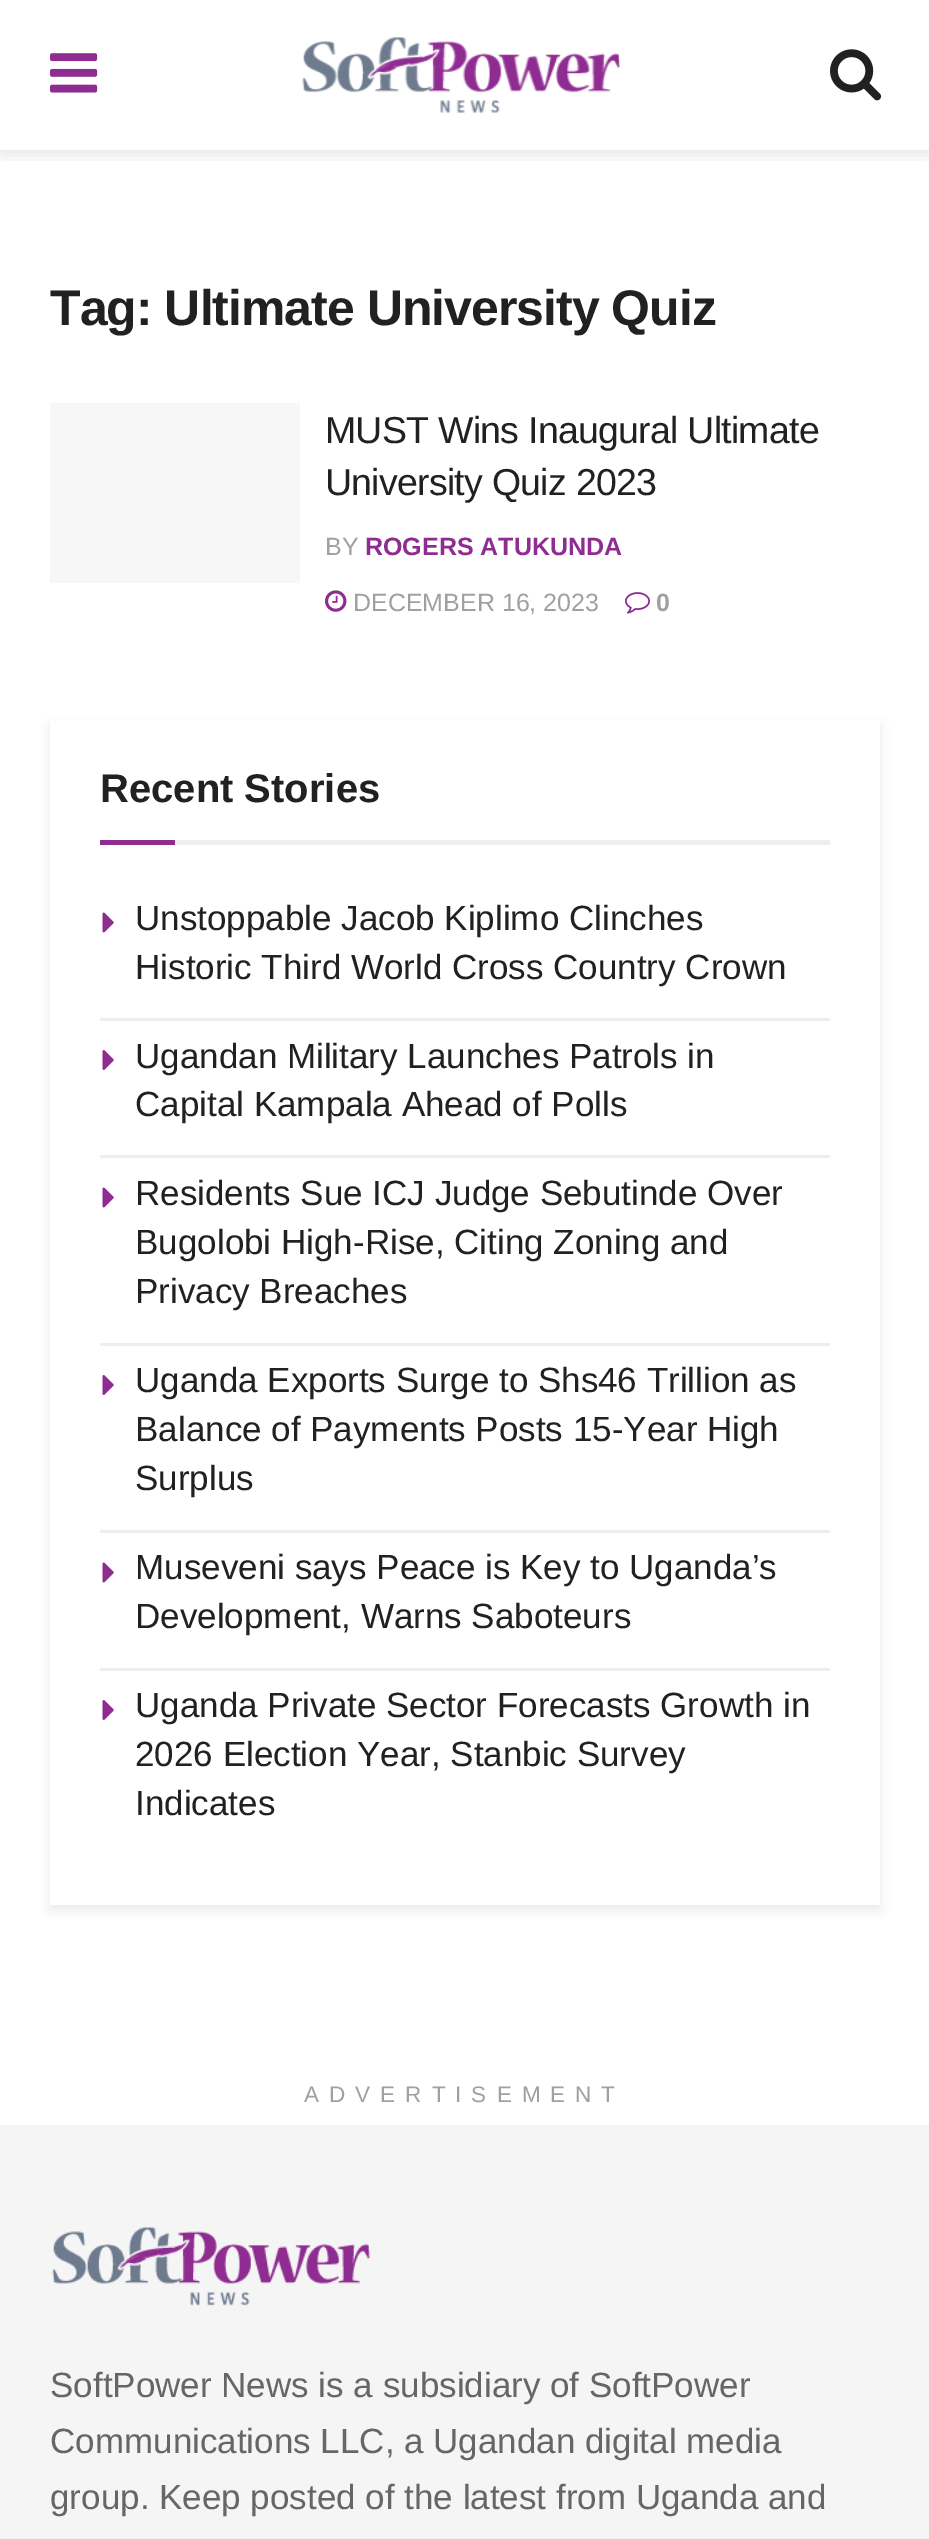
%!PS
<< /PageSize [929 2539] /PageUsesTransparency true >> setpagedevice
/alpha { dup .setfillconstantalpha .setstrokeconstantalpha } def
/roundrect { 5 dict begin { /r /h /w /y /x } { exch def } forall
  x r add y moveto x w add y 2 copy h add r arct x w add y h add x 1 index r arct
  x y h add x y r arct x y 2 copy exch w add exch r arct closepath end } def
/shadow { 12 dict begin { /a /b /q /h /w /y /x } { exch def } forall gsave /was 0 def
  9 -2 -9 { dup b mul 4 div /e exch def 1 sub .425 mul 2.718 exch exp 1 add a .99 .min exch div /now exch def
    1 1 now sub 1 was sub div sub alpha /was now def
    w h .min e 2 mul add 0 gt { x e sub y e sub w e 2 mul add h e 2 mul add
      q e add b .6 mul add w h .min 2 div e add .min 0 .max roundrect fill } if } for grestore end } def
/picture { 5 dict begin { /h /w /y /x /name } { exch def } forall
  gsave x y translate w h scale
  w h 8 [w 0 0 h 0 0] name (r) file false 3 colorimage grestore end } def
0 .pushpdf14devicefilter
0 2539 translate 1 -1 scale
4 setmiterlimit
1 setgray
0 0 929 2539 rectfill
gsave
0 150 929 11 rectclip
0 setgray
0 5 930 150 0 7.5 0.1 shadow
grestore
(img1.rgb) 50 53 48 40 picture
(img2.rgb) 302 37 319 77 picture
(img3.rgb) 830 49 52 52 picture
/LiberationSans-Bold [50 0 0 -50 0 0] selectfont
0.129 setgray
50 325 moveto -1 0 (Tag: Ultimate University Quiz) ashow
0.969 setgray
50 403 250 180 rectfill
/LiberationSans-Regular [37.5 0 0 -37.5 0 0] selectfont
0.129 setgray
325 443 moveto -0.75 0 (MUST Wins Inaugural Ultimate) ashow
325 495 moveto -0.75 0 (University Quiz 2023) ashow
/LiberationSans-Regular [25 0 0 -25 0 0] selectfont
0.627 setgray
325 555 moveto (BY) show
/LiberationSans-Bold [25 0 0 -25 0 0] selectfont
0.561 0.173 0.569 setrgbcolor
365 555 moveto (ROGERS ATUKUNDA) show
(img4.rgb) 325 590 22 22 picture
/LiberationSans-Regular [25 0 0 -25 0 0] selectfont
0.627 setgray
353 611 moveto (DECEMBER 16, 2023) show
(img5.rgb) 625 592 25 22 picture
/LiberationSans-Bold [25 0 0 -25 0 0] selectfont
656 611 moveto (0) show
gsave
newpath 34 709 moveto 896 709 lineto 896 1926 lineto 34 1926 lineto closepath 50 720 moveto 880 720 lineto 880 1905 lineto 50 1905 lineto closepath eoclip newpath
0 setgray
50 725 830 1185 0 5 0.08 shadow
grestore
0.933 setgray
175 840 655 5 rectfill
/LiberationSans-Bold [40 0 0 -40 0 0] selectfont
0.129 setgray
100 802 moveto (Recent Stories) show
0.561 0.173 0.569 setrgbcolor
100 840 75 5 rectfill
0.933 setgray
100 1018 730 3 rectfill
(img6.rgb) 102 912 12 21 picture
/LiberationSans-Regular [35 0 0 -35 0 0] selectfont
0.129 setgray
135 930 moveto (Unstoppable Jacob Kiplimo Clinches) show
135 979 moveto (Historic Third World Cross Country Crown) show
0.933 setgray
100 1155 730 3 rectfill
(img7.rgb) 102 1050 12 20 picture
0.129 setgray
135 1068 moveto (Ugandan Military Launches Patrols in) show
135 1116 moveto (Capital Kampala Ahead of Polls) show
0.933 setgray
100 1343 730 3 rectfill
(img6.rgb) 102 1187 12 21 picture
0.129 setgray
135 1205 moveto (Residents Sue ICJ Judge Sebutinde Over) show
135 1254 moveto (Bugolobi High-Rise, Citing Zoning and) show
135 1303 moveto (Privacy Breaches) show
0.933 setgray
100 1530 730 3 rectfill
(img7.rgb) 102 1375 12 20 picture
0.129 setgray
135 1392 moveto (Uganda Exports Surge to Shs46 Trillion as) show
135 1441 moveto (Balance of Payments Posts 15-Year High) show
135 1490 moveto (Surplus) show
0.933 setgray
100 1668 730 3 rectfill
(img6.rgb) 102 1562 12 21 picture
0.129 setgray
135 1579 moveto (Museveni says Peace is Key to Uganda’s) show
135 1628 moveto (Development, Warns Saboteurs) show
(img7.rgb) 102 1700 12 20 picture
135 1717 moveto (Uganda Private Sector Forecasts Growth in) show
135 1766 moveto (2026 Election Year, Stanbic Survey) show
135 1815 moveto (Indicates) show
/LiberationSans-Regular [22.5 0 0 -22.5 0 0] selectfont
0.627 setgray
304 2102 moveto 10 0 (ADVERTISEMENT) ashow
0.961 setgray
0 2125 929 414 rectfill
(img8.rgb) 52 2227 319 79 picture
/LiberationSans-Regular [35 0 0 -35 0 0] selectfont
0.4 setgray
50 2397 moveto (SoftPower News is a subsidiary of SoftPower) show
50 2453 moveto (Communications LLC, a Ugandan digital media) show
50 2509 moveto (group. Keep posted of the latest from Uganda and) show
.poppdf14devicefilter showpage
